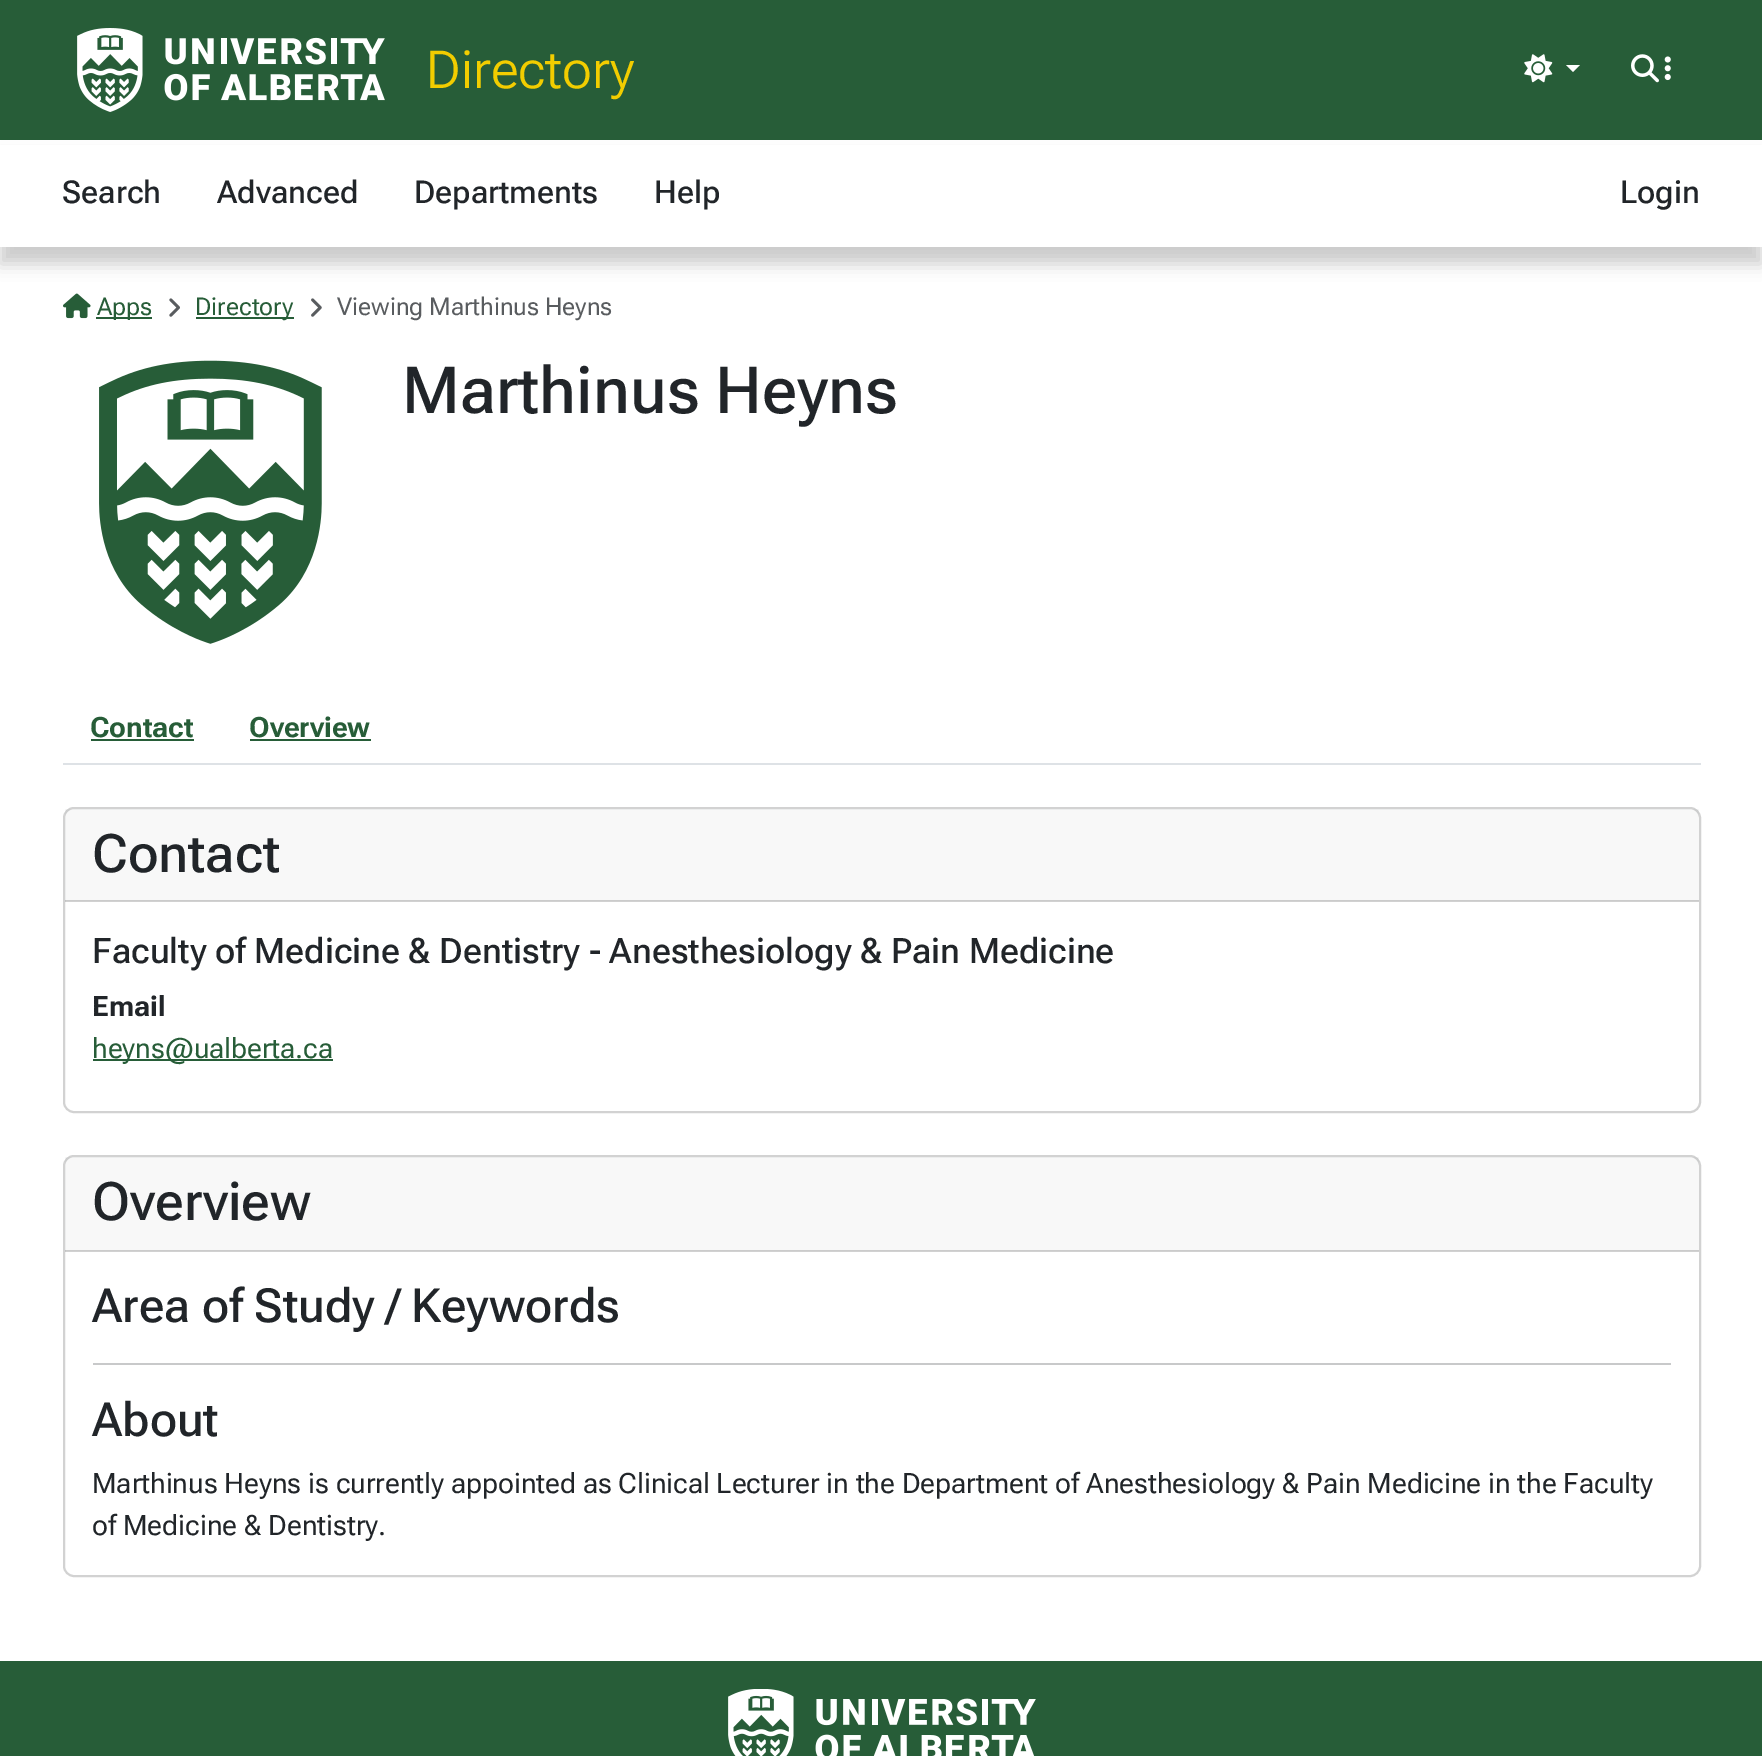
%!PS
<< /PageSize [1762 1756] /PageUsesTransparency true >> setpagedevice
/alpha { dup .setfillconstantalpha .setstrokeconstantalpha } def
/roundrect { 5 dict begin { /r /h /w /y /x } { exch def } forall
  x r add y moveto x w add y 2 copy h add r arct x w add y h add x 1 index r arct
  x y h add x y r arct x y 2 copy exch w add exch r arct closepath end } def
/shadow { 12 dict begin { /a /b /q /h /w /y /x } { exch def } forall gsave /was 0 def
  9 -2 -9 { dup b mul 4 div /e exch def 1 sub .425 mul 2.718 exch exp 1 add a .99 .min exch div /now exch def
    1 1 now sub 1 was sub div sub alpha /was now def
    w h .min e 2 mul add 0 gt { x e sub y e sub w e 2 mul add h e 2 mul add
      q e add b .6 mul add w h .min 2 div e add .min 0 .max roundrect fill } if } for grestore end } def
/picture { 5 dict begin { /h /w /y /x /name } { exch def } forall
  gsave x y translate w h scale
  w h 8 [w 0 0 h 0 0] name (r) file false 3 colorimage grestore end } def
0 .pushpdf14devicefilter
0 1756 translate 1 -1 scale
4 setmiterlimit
1 setgray
0 0 1762 1756 rectfill
0.153 0.365 0.22 setrgbcolor
0 0 1762 140 rectfill
(img1.rgb) 77 28 308 84 picture
/RobotoFlex-Light [52.5 0 0 -52.5 0 0] selectfont
0.949 0.804 0 setrgbcolor
426 88 moveto (Directory) show
(img2.rgb) 1524 54 29 29 picture
1 setgray
newpath 1566 65 moveto 1580 65 lineto 1573 72 lineto closepath fill
(img3.rgb) 1631 54 28 29 picture
(img4.rgb) 1664 56 7 25 picture
0 setgray
0 158 1762 106 0 8 0.2 shadow
1 setgray
0 145 1762 102 rectfill
/RobotoFlex-Medium [31.5 0 0 -31.5 0 0] selectfont
0.129 0.145 0.161 setrgbcolor
62 203 moveto (Search) show
217 203 moveto (Advanced) show
414 203 moveto (Departments) show
654 203 moveto (Help) show
1620 203 moveto (Login) show
(img5.rgb) 63 293 28 26 picture
0.153 0.365 0.22 setrgbcolor
96 317 56 2 rectfill
/RobotoFlex-Regular [24.5 0 0 -24.5 0 0] selectfont
97 315 moveto (Apps) show
(img6.rgb) 169 298 11 19 picture
196 317 98 2 rectfill
195 315 moveto (Directory) show
(img7.rgb) 311 298 11 19 picture
0.349 0.361 0.373 setrgbcolor
337 315 moveto (Viewing Marthinus Heyns) show
(img8.rgb) 99 360 223 284 picture
/RobotoFlex-Medium [65 0 0 -65 0 0] selectfont
0.129 0.145 0.161 setrgbcolor
402 413 moveto (Marthinus Heyns) show
0.871 0.886 0.902 setrgbcolor
63 763 1638 2 rectfill
/RobotoFlex-Bold [28 0 0 -28 0 0] selectfont
0.153 0.365 0.22 setrgbcolor
90 737 moveto (Contact) show
91 739 103 2 rectfill
249 737 moveto (Overview) show
250 739 121 2 rectfill
0.824 setgray
2 setlinewidth
64 808 1636 304 10 roundrect stroke
0.03 alpha
0.129 0.145 0.161 setrgbcolor
65 809 1634 92 rectfill
0.18 alpha
0 setgray
65 900 1634 2 rectfill
/RobotoFlex-Medium [53 0 0 -53 0 0] selectfont
1 alpha
0.129 0.145 0.161 setrgbcolor
92 872 moveto (Contact) show
/RobotoFlex-Medium [35 0 0 -35 0 0] selectfont
92 963 moveto (Faculty of Medicine & Dentistry - Anesthesiology & Pain Medicine) show
/RobotoFlex-Bold [28 0 0 -28 0 0] selectfont
92 1016 moveto (Email) show
0.153 0.365 0.22 setrgbcolor
93 1059 240 2 rectfill
/RobotoFlex-Regular [28 0 0 -28 0 0] selectfont
92 1058 moveto (heyns@ualberta.ca) show
0.824 setgray
64 1156 1636 420 10 roundrect stroke
0.03 alpha
0.129 0.145 0.161 setrgbcolor
65 1157 1634 94 rectfill
0.18 alpha
0 setgray
65 1250 1634 2 rectfill
/RobotoFlex-Medium [53 0 0 -53 0 0] selectfont
1 alpha
0.129 0.145 0.161 setrgbcolor
92 1220 moveto (Overview) show
/RobotoFlex-Medium [47 0 0 -47 0 0] selectfont
92 1322 moveto (Area of Study / Keywords) show
0.784 0.788 0.792 setrgbcolor
93 1363 1578 2 rectfill
0.129 0.145 0.161 setrgbcolor
92 1436 moveto (About) show
/RobotoFlex-Regular [28 0 0 -28 0 0] selectfont
92 1493 moveto (Marthinus Heyns is currently appointed as Clinical Lecturer in the Department of Anesthesiology & Pain Medicine in the Faculty) show
92 1535 moveto (of Medicine & Dentistry.) show
0.153 0.365 0.22 setrgbcolor
0 1661 1762 95 rectfill
(img9.rgb) 728 1689 308 67 picture
.poppdf14devicefilter showpage
